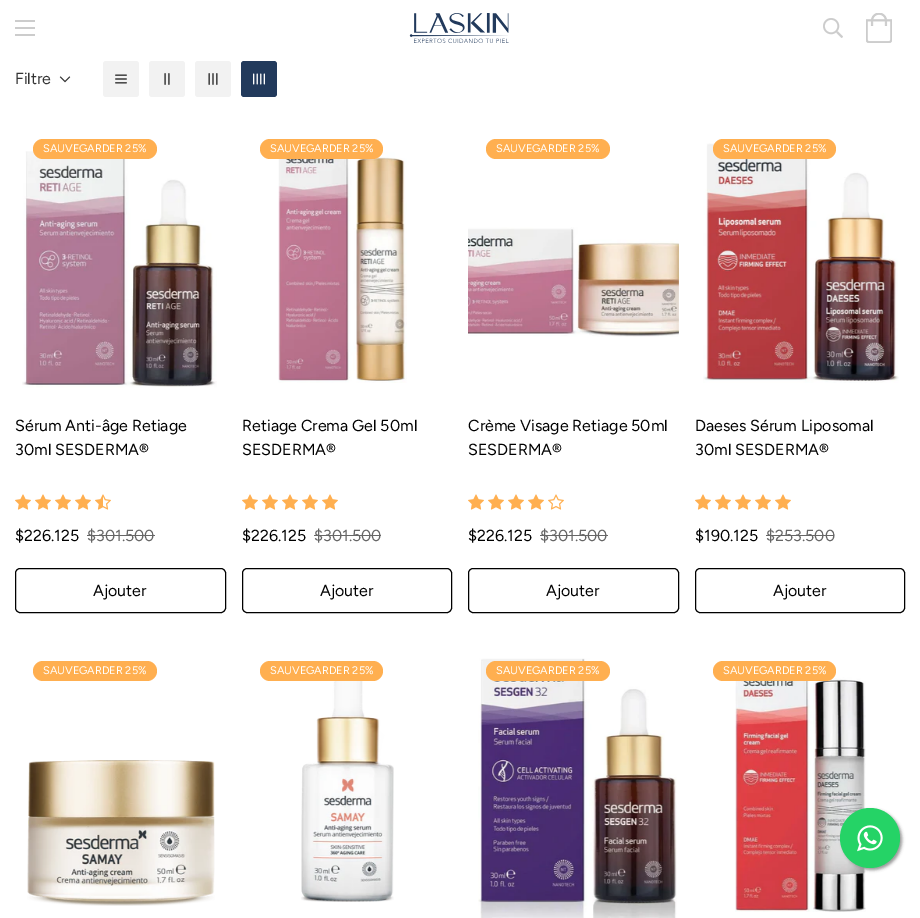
%!PS
<< /PageSize [920 918] /PageUsesTransparency true >> setpagedevice
/alpha { dup .setfillconstantalpha .setstrokeconstantalpha } def
/roundrect { 5 dict begin { /r /h /w /y /x } { exch def } forall
  x r add y moveto x w add y 2 copy h add r arct x w add y h add x 1 index r arct
  x y h add x y r arct x y 2 copy exch w add exch r arct closepath end } def
/shadow { 12 dict begin { /a /b /q /h /w /y /x } { exch def } forall gsave /was 0 def
  9 -2 -9 { dup b mul 4 div /e exch def 1 sub .425 mul 2.718 exch exp 1 add a .99 .min exch div /now exch def
    1 1 now sub 1 was sub div sub alpha /was now def
    w h .min e 2 mul add 0 gt { x e sub y e sub w e 2 mul add h e 2 mul add
      q e add b .6 mul add w h .min 2 div e add .min 0 .max roundrect fill } if } for grestore end } def
/picture { 5 dict begin { /h /w /y /x /name } { exch def } forall
  gsave x y translate w h scale
  w h 8 [w 0 0 h 0 0] name (r) file false 3 colorimage grestore end } def
0 .pushpdf14devicefilter
0 918 translate 1 -1 scale
4 setmiterlimit
1 setgray
0 0 920 918 rectfill
0.8 setgray
15 27 20 2 rectfill
15 20 20 2 rectfill
15 34 20 2 rectfill
(img1.rgb) 409 13 100 30 picture
(img2.rgb) 823 18 20 20 picture
(img3.rgb) 866 13 26 30 picture
/Figtree-Regular [16 0 0 -16 0 0] selectfont
0.2 setgray
15 84 moveto (Filtre) show
(img4.rgb) 59 76 12 7 picture
0.949 setgray
103 61 36 36 3 roundrect fill
(img5.rgb) 115 74 12 10 picture
149 61 36 36 3 roundrect fill
(img6.rgb) 164 73 6 12 picture
195 61 36 36 3 roundrect fill
(img7.rgb) 208 73 10 12 picture
0.133 0.227 0.361 setrgbcolor
241 61 36 36 3 roundrect fill
(img8.rgb) 253 73 12 12 picture
(img9.rgb) 22 151 195 237 picture
1 0.686 0.314 setrgbcolor
33 139 124 20 10 roundrect fill
/Figtree-Regular [11 0 0 -11 0 0] selectfont
1 setgray
43 152 moveto (SAUVEGARDER 25%) show
/Figtree-Regular [16 0 0 -16 0 0] selectfont
0 setgray
15 431 moveto (Sérum Anti-âge Retiage) show
15 455 moveto (30ml SESDERMA®) show
(img10.rgb) 15 494 16 16 picture
(img10.rgb) 35 494 16 16 picture
(img10.rgb) 55 494 16 16 picture
(img10.rgb) 75 494 16 16 picture
(img11.rgb) 95 494 16 16 picture
15 541 moveto ($226.125) show
0.4 setgray
87 541 moveto ($301.500) show
87 535 68 1 rectfill
0 setgray
15.5 568.5 210 44 4.5 roundrect stroke
93 596 moveto (Ajouter) show
(img12.rgb) 278 143 129 240 picture
1 0.686 0.314 setrgbcolor
260 139 123 20 10 roundrect fill
/Figtree-Regular [11 0 0 -11 0 0] selectfont
1 setgray
270 152 moveto (SAUVEGARDER 25%) show
/Figtree-Regular [16 0 0 -16 0 0] selectfont
0 setgray
242 431 moveto (Retiage Crema Gel 50ml) show
242 455 moveto (SESDERMA®) show
(img10.rgb) 242 494 16 16 picture
(img10.rgb) 262 494 16 16 picture
(img10.rgb) 282 494 16 16 picture
(img10.rgb) 302 494 16 16 picture
(img10.rgb) 322 494 16 16 picture
242 541 moveto ($226.125) show
0.4 setgray
314 541 moveto ($301.500) show
314 535 67 1 rectfill
0 setgray
242.5 568.5 209 44 4.5 roundrect stroke
320 596 moveto (Ajouter) show
1 0.686 0.314 setrgbcolor
486 139 124 20 10 roundrect fill
/Figtree-Regular [11 0 0 -11 0 0] selectfont
1 setgray
496 152 moveto (SAUVEGARDER 25%) show
(img13.rgb) 468 227 211 110 picture
/Figtree-Regular [16 0 0 -16 0 0] selectfont
0 setgray
468 431 moveto (Crème Visage Retiage 50ml) show
468 455 moveto (SESDERMA®) show
(img10.rgb) 468 494 16 16 picture
(img10.rgb) 488 494 16 16 picture
(img10.rgb) 508 494 16 16 picture
(img10.rgb) 528 494 16 16 picture
(img14.rgb) 548 494 16 16 picture
468 541 moveto ($226.125) show
0.4 setgray
540 541 moveto ($301.500) show
540 535 68 1 rectfill
0 setgray
468.5 568.5 210 44 4.5 roundrect stroke
546 596 moveto (Ajouter) show
(img15.rgb) 703 143 196 240 picture
1 0.686 0.314 setrgbcolor
713 139 123 20 10 roundrect fill
/Figtree-Regular [11 0 0 -11 0 0] selectfont
1 setgray
723 152 moveto (SAUVEGARDER 25%) show
/Figtree-Regular [16 0 0 -16 0 0] selectfont
0 setgray
695 431 moveto (Daeses Sérum Liposomal) show
695 455 moveto (30ml SESDERMA®) show
(img10.rgb) 695 494 16 16 picture
(img10.rgb) 715 494 16 16 picture
(img10.rgb) 735 494 16 16 picture
(img10.rgb) 755 494 16 16 picture
(img10.rgb) 775 494 16 16 picture
695 541 moveto ($190.125) show
0.4 setgray
766 541 moveto ($253.500) show
766 535 68 1 rectfill
0 setgray
695.5 568.5 209 44 4.5 roundrect stroke
773 596 moveto (Ajouter) show
1 0.686 0.314 setrgbcolor
33 661 124 20 10 roundrect fill
/Figtree-Regular [11 0 0 -11 0 0] selectfont
1 setgray
43 674 moveto (SAUVEGARDER 25%) show
(img16.rgb) 27 760 188 146 picture
1 0.686 0.314 setrgbcolor
260 661 123 20 10 roundrect fill
1 setgray
270 674 moveto (SAUVEGARDER 25%) show
(img17.rgb) 301 681 93 221 picture
(img18.rgb) 478 658 199 260 picture
1 0.686 0.314 setrgbcolor
486 661 124 20 10 roundrect fill
1 setgray
496 674 moveto (SAUVEGARDER 25%) show
(img19.rgb) 735 663 131 249 picture
1 0.686 0.314 setrgbcolor
713 661 123 20 10 roundrect fill
1 setgray
723 674 moveto (SAUVEGARDER 25%) show
0.6 setgray
842 810 60 60 30 1.5 1 shadow
0.145 0.827 0.4 setrgbcolor
newpath 870 838 30 0 360 arc closepath fill
(img20.rgb) 857 825 26 27 picture
.poppdf14devicefilter showpage
